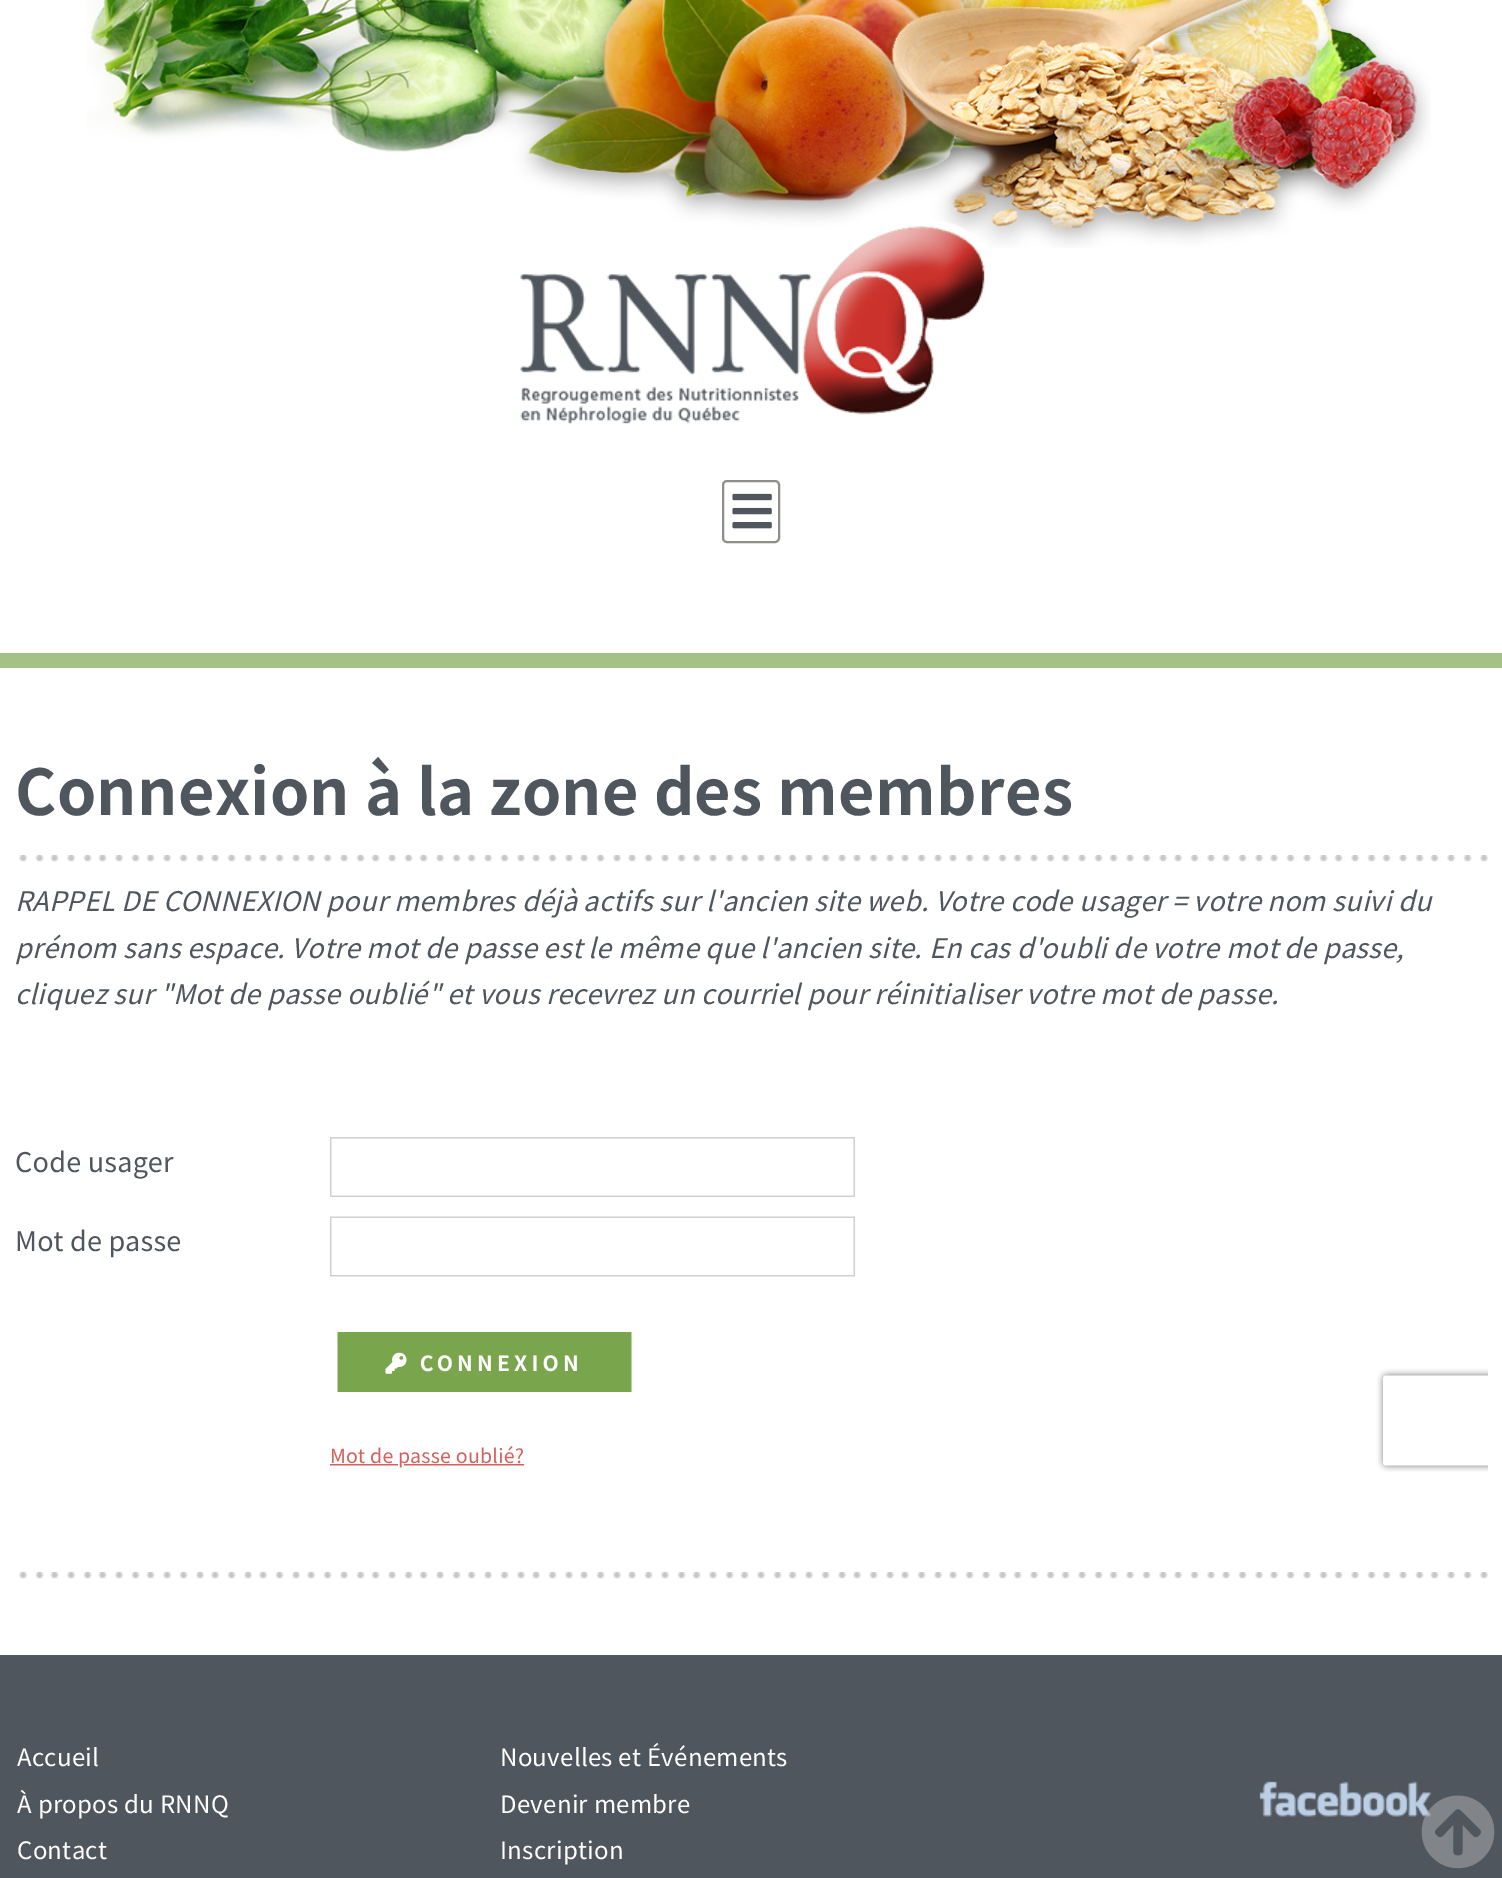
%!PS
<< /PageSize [1502 1878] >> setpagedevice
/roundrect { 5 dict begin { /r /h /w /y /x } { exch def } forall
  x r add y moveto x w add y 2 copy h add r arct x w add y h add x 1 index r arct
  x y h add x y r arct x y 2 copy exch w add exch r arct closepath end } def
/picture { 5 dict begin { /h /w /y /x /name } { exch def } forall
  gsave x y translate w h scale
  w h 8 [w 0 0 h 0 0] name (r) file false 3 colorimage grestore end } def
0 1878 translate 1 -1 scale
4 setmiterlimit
1 setgray
0 0 1502 1878 rectfill
(img1.rgb) 86 0 1345 248 picture
(img2.rgb) 520 221 465 203 picture
0.561 0.557 0.541 setrgbcolor
2 setlinewidth
723 481 56 61 4 roundrect stroke
(img3.rgb) 732 493 40 36 picture
0.643 0.761 0.525 setrgbcolor
0 653 1502 15 rectfill
(img4.rgb) 19 855 1469 7 picture
/NotoSansKR-Bold [63 0 0 -63 0 0] selectfont
0.314 0.337 0.365 setrgbcolor
15 815 moveto 0.3 0 (Connexion à la zone des membres) ashow
/NotoSansKR-Italic [27 0 0 -27 0 0] selectfont
15 911 moveto 0.27 0 (RAPPEL DE CONNEXION pour membres déjà actifs sur l'ancien site web. Votre code usager = votre nom suivi du) ashow
15 958 moveto 0.27 0 (prénom sans espace. Votre mot de passe est le même que l'ancien site. En cas d'oubli de votre mot de passe,) ashow
15 1004 moveto 0.27 0 (cliquez sur "Mot de passe oublié" et vous recevrez un courriel pour réinitialiser votre mot de passe.) ashow
(img5.rgb) 16 1137 1472 335 picture
(img6.rgb) 19 1572 1469 7 picture
0 1655 1502 223 rectfill
/NotoSansKR-Regular [24 0 0 -24 0 0] selectfont
1 setgray
17 1766 moveto 0.27 0 (Accueil) ashow
17 1813 moveto 0.27 0 (À propos du RNNQ) ashow
17 1859 moveto 0.27 0 (Contact) ashow
500 1766 moveto 0.27 0 (Nouvelles et Événements) ashow
500 1813 moveto 0.27 0 (Devenir membre) ashow
500 1859 moveto 0.27 0 (Inscription) ashow
(img7.rgb) 1259 1779 174 42 picture
(img8.rgb) 1421 1795 74 74 picture
showpage
